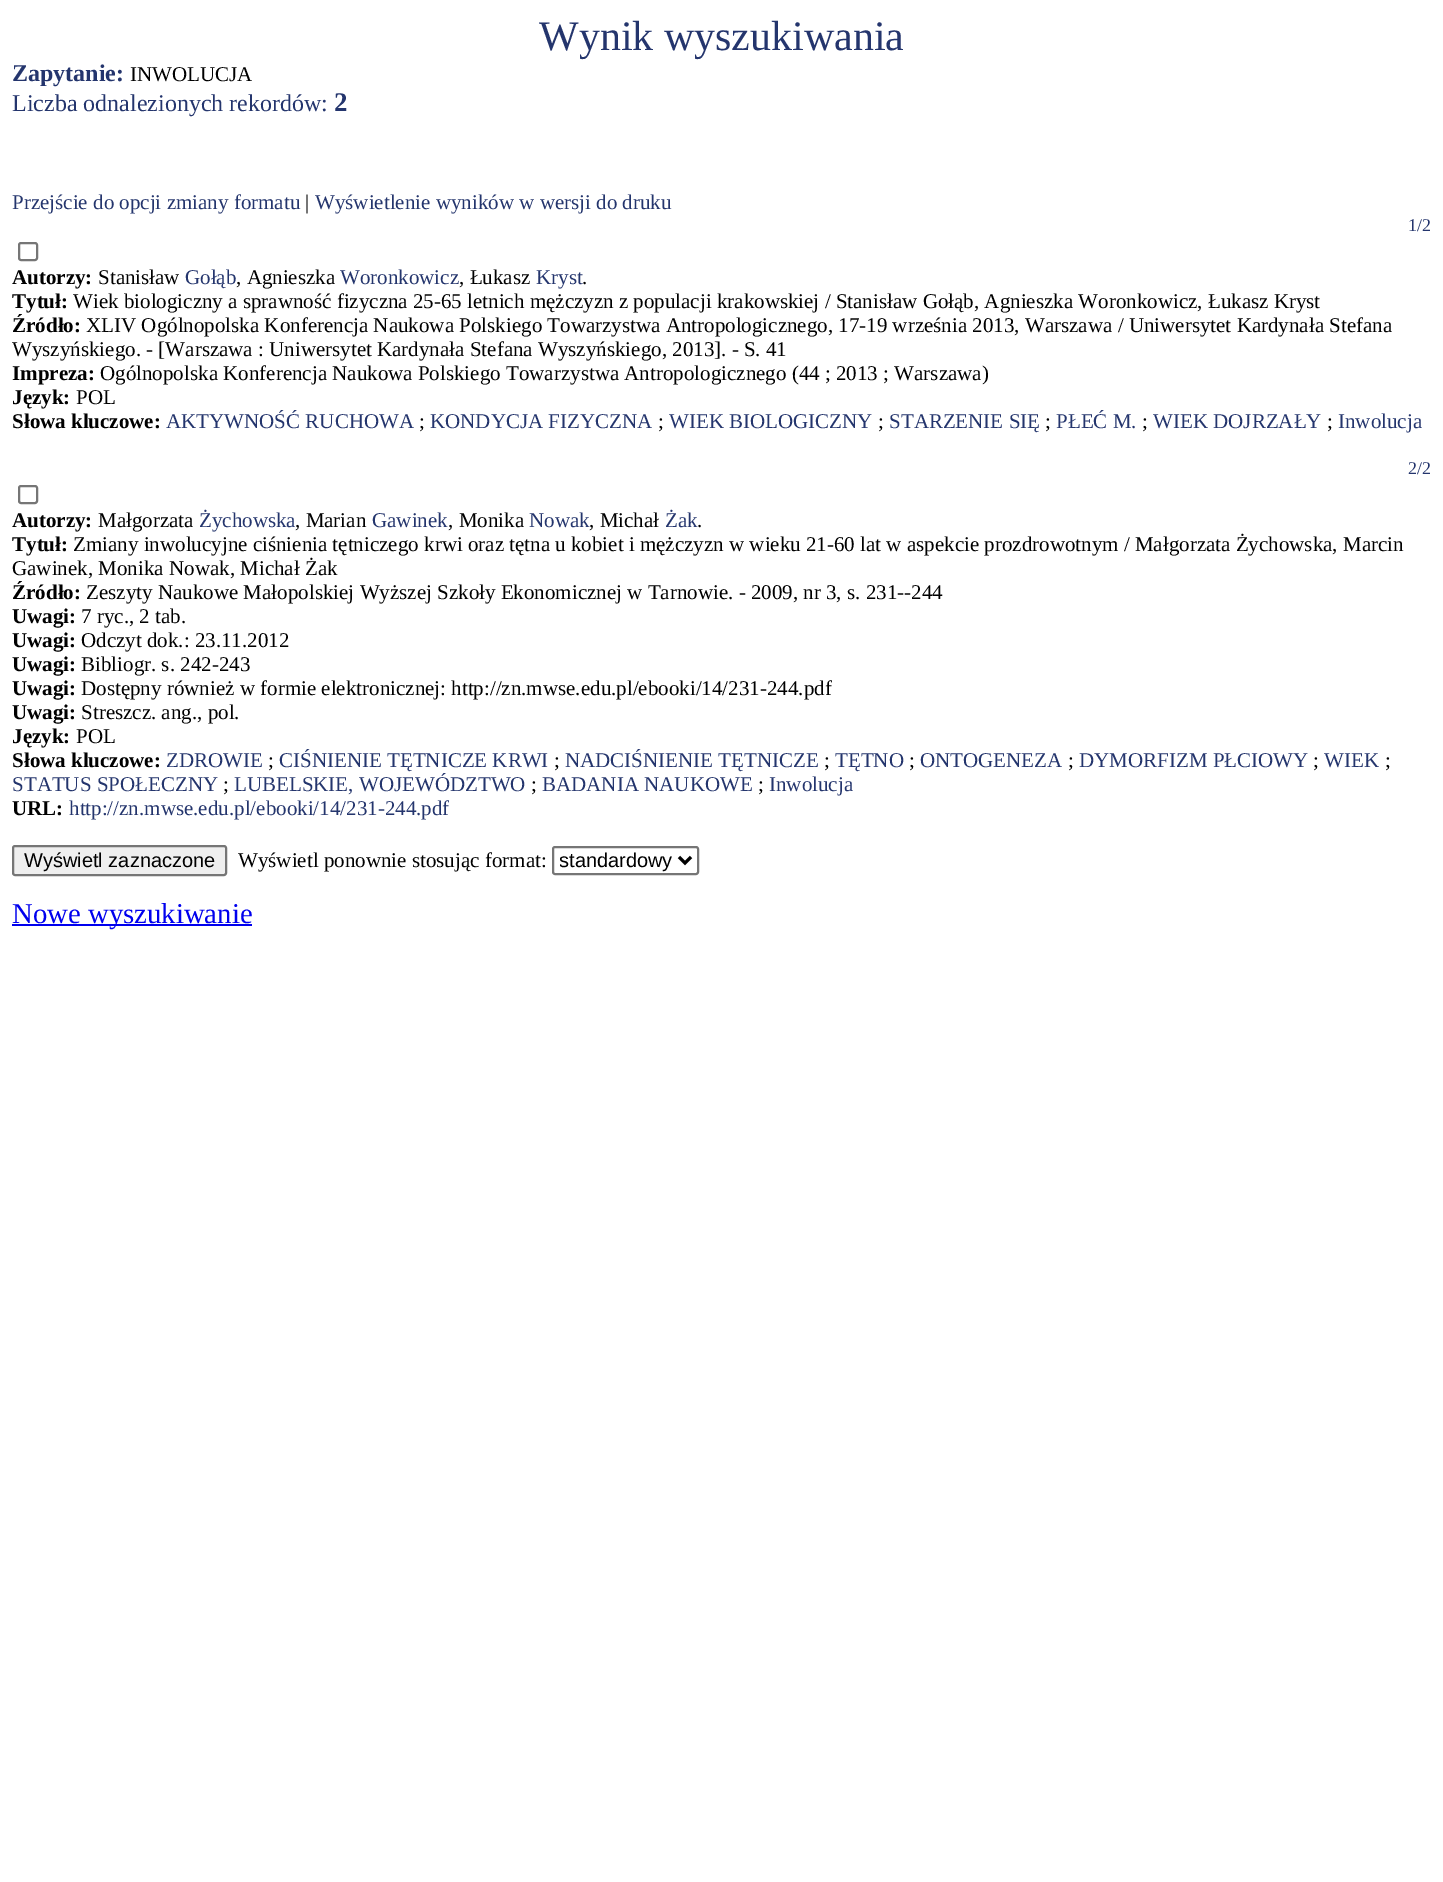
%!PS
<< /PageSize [1443 1882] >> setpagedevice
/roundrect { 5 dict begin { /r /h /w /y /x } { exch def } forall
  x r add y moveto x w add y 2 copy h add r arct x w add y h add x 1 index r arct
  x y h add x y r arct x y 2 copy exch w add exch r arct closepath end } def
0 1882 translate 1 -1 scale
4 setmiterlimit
1 setgray
0 0 1443 1882 rectfill
/LiberationSerif-Regular [42 0 0 -42 0 0] selectfont
0.141 0.208 0.427 setrgbcolor
539 50 moveto (Wynik wyszukiwania) show
/LiberationSerif-Bold [24 0 0 -24 0 0] selectfont
12 81 moveto (Zapytanie:) show
/LiberationSerif-Regular [21 0 0 -21 0 0] selectfont
0 setgray
130 81 moveto (INWOLUCJA) show
/LiberationSerif-Regular [24 0 0 -24 0 0] selectfont
0.141 0.208 0.427 setrgbcolor
12 111 moveto (Liczba odnalezionych rekordów:) show
/LiberationSerif-Bold [27 0 0 -27 0 0] selectfont
334 111 moveto (2) show
/LiberationSerif-Regular [21 0 0 -21 0 0] selectfont
12 209 moveto (Przejście do opcji zmiany formatu) show
0 setgray
305 209 moveto (|) show
0.141 0.208 0.427 setrgbcolor
315 209 moveto (Wyświetlenie wyników w wersji do druku) show
/LiberationSerif-Regular [18 0 0 -18 0 0] selectfont
1408 231 moveto (1/2) show
0.463 setgray
2 setlinewidth
19 243 18 17 2 roundrect stroke
/LiberationSerif-Bold [21 0 0 -21 0 0] selectfont
0 setgray
12 284 moveto (Autorzy:) show
/LiberationSerif-Regular [21 0 0 -21 0 0] selectfont
98 284 moveto (Stanisław) show
0.141 0.208 0.427 setrgbcolor
185 284 moveto (Gołąb) show
0 setgray
236 284 moveto (, Agnieszka) show
0.141 0.208 0.427 setrgbcolor
340 284 moveto (Woronkowicz) show
0 setgray
459 284 moveto (, Łukasz) show
0.141 0.208 0.427 setrgbcolor
536 284 moveto (Kryst) show
0 setgray
582 284 moveto (.) show
/LiberationSerif-Bold [21 0 0 -21 0 0] selectfont
12 308 moveto (Tytuł:) show
/LiberationSerif-Regular [21 0 0 -21 0 0] selectfont
73 308 moveto (Wiek biologiczny a sprawność fizyczna 25-65 letnich mężczyzn z populacji krakowskiej / Stanisław Gołąb, Agnieszka Woronkowicz, Łukasz Kryst) show
/LiberationSerif-Bold [21 0 0 -21 0 0] selectfont
12 332 moveto (Źródło:) show
/LiberationSerif-Regular [21 0 0 -21 0 0] selectfont
86 332 moveto (XLIV Ogólnopolska Konferencja Naukowa Polskiego Towarzystwa Antropologicznego, 17-19 września 2013, Warszawa / Uniwersytet Kardynała Stefana) show
12 356 moveto (Wyszyńskiego. - [Warszawa : Uniwersytet Kardynała Stefana Wyszyńskiego, 2013]. - S. 41) show
/LiberationSerif-Bold [21 0 0 -21 0 0] selectfont
12 380 moveto (Impreza:) show
/LiberationSerif-Regular [21 0 0 -21 0 0] selectfont
100 380 moveto (Ogólnopolska Konferencja Naukowa Polskiego Towarzystwa Antropologicznego \(44 ; 2013 ; Warszawa\)) show
/LiberationSerif-Bold [21 0 0 -21 0 0] selectfont
12 404 moveto (Język:) show
/LiberationSerif-Regular [21 0 0 -21 0 0] selectfont
76 404 moveto (POL) show
/LiberationSerif-Bold [21 0 0 -21 0 0] selectfont
12 428 moveto (Słowa kluczowe:) show
/LiberationSerif-Regular [21 0 0 -21 0 0] selectfont
0.141 0.208 0.427 setrgbcolor
166 428 moveto (AKTYWNOŚĆ RUCHOWA) show
0 setgray
419 428 moveto (;) show
0.141 0.208 0.427 setrgbcolor
430 428 moveto (KONDYCJA FIZYCZNA) show
0 setgray
658 428 moveto (;) show
0.141 0.208 0.427 setrgbcolor
669 428 moveto (WIEK BIOLOGICZNY) show
0 setgray
878 428 moveto (;) show
0.141 0.208 0.427 setrgbcolor
889 428 moveto (STARZENIE SIĘ) show
0 setgray
1045 428 moveto (;) show
0.141 0.208 0.427 setrgbcolor
1056 428 moveto (PŁEĆ M.) show
0 setgray
1142 428 moveto (;) show
0.141 0.208 0.427 setrgbcolor
1153 428 moveto (WIEK DOJRZAŁY) show
0 setgray
1327 428 moveto (;) show
0.141 0.208 0.427 setrgbcolor
1338 428 moveto (Inwolucja) show
/LiberationSerif-Regular [18 0 0 -18 0 0] selectfont
1408 474 moveto (2/2) show
0.463 setgray
19 486 18 17 2 roundrect stroke
/LiberationSerif-Bold [21 0 0 -21 0 0] selectfont
0 setgray
12 527 moveto (Autorzy:) show
/LiberationSerif-Regular [21 0 0 -21 0 0] selectfont
98 527 moveto (Małgorzata) show
0.141 0.208 0.427 setrgbcolor
199 527 moveto (Żychowska) show
0 setgray
295 527 moveto (, Marian) show
0.141 0.208 0.427 setrgbcolor
372 527 moveto (Gawinek) show
0 setgray
448 527 moveto (, Monika) show
0.141 0.208 0.427 setrgbcolor
529 527 moveto (Nowak) show
0 setgray
589 527 moveto (, Michał) show
0.141 0.208 0.427 setrgbcolor
665 527 moveto (Żak) show
0 setgray
697 527 moveto (.) show
/LiberationSerif-Bold [21 0 0 -21 0 0] selectfont
12 551 moveto (Tytuł:) show
/LiberationSerif-Regular [21 0 0 -21 0 0] selectfont
73 551 moveto (Zmiany inwolucyjne ciśnienia tętniczego krwi oraz tętna u kobiet i mężczyzn w wieku 21-60 lat w aspekcie prozdrowotnym / Małgorzata Żychowska, Marcin) show
12 575 moveto (Gawinek, Monika Nowak, Michał Żak) show
/LiberationSerif-Bold [21 0 0 -21 0 0] selectfont
12 599 moveto (Źródło:) show
/LiberationSerif-Regular [21 0 0 -21 0 0] selectfont
86 599 moveto (Zeszyty Naukowe Małopolskiej Wyższej Szkoły Ekonomicznej w Tarnowie. - 2009, nr 3, s. 231--244) show
/LiberationSerif-Bold [21 0 0 -21 0 0] selectfont
12 623 moveto (Uwagi:) show
/LiberationSerif-Regular [21 0 0 -21 0 0] selectfont
81 623 moveto (7 ryc., 2 tab.) show
/LiberationSerif-Bold [21 0 0 -21 0 0] selectfont
12 647 moveto (Uwagi:) show
/LiberationSerif-Regular [21 0 0 -21 0 0] selectfont
81 647 moveto (Odczyt dok.: 23.11.2012) show
/LiberationSerif-Bold [21 0 0 -21 0 0] selectfont
12 671 moveto (Uwagi:) show
/LiberationSerif-Regular [21 0 0 -21 0 0] selectfont
81 671 moveto (Bibliogr. s. 242-243) show
/LiberationSerif-Bold [21 0 0 -21 0 0] selectfont
12 695 moveto (Uwagi:) show
/LiberationSerif-Regular [21 0 0 -21 0 0] selectfont
81 695 moveto (Dostępny również w formie elektronicznej: http://zn.mwse.edu.pl/ebooki/14/231-244.pdf) show
/LiberationSerif-Bold [21 0 0 -21 0 0] selectfont
12 719 moveto (Uwagi:) show
/LiberationSerif-Regular [21 0 0 -21 0 0] selectfont
81 719 moveto (Streszcz. ang., pol.) show
/LiberationSerif-Bold [21 0 0 -21 0 0] selectfont
12 743 moveto (Język:) show
/LiberationSerif-Regular [21 0 0 -21 0 0] selectfont
76 743 moveto (POL) show
/LiberationSerif-Bold [21 0 0 -21 0 0] selectfont
12 767 moveto (Słowa kluczowe:) show
/LiberationSerif-Regular [21 0 0 -21 0 0] selectfont
0.141 0.208 0.427 setrgbcolor
166 767 moveto (ZDROWIE) show
0 setgray
268 767 moveto (;) show
0.141 0.208 0.427 setrgbcolor
279 767 moveto (CIŚNIENIE TĘTNICZE KRWI) show
0 setgray
554 767 moveto (;) show
0.141 0.208 0.427 setrgbcolor
565 767 moveto (NADCIŚNIENIE TĘTNICZE) show
0 setgray
824 767 moveto (;) show
0.141 0.208 0.427 setrgbcolor
835 767 moveto (TĘTNO) show
0 setgray
909 767 moveto (;) show
0.141 0.208 0.427 setrgbcolor
920 767 moveto (ONTOGENEZA) show
0 setgray
1068 767 moveto (;) show
0.141 0.208 0.427 setrgbcolor
1079 767 moveto (DYMORFIZM PŁCIOWY) show
0 setgray
1313 767 moveto (;) show
0.141 0.208 0.427 setrgbcolor
1324 767 moveto (WIEK) show
0 setgray
1385 767 moveto (;) show
0.141 0.208 0.427 setrgbcolor
12 791 moveto (STATUS SPOŁECZNY) show
0 setgray
223 791 moveto (;) show
0.141 0.208 0.427 setrgbcolor
234 791 moveto (LUBELSKIE, WOJEWÓDZTWO) show
0 setgray
531 791 moveto (;) show
0.141 0.208 0.427 setrgbcolor
542 791 moveto (BADANIA NAUKOWE) show
0 setgray
758 791 moveto (;) show
0.141 0.208 0.427 setrgbcolor
769 791 moveto (Inwolucja) show
/LiberationSerif-Bold [21 0 0 -21 0 0] selectfont
0 setgray
12 815 moveto (URL:) show
/LiberationSerif-Regular [21 0 0 -21 0 0] selectfont
0.141 0.208 0.427 setrgbcolor
69 815 moveto (http://zn.mwse.edu.pl/ebooki/14/231-244.pdf) show
0.937 setgray
13 846 213 29 2 roundrect gsave fill grestore
0.463 setgray
stroke
/LiberationSans-Regular [20 0 0 -20 0 0] selectfont
0 setgray
24 867 moveto (Wyświetl zaznaczone) show
/LiberationSerif-Regular [21 0 0 -21 0 0] selectfont
238 867 moveto (Wyświetl ponownie stosując format:) show
0.463 setgray
553 847 145 27 2 roundrect stroke
0 setgray
3 setlinewidth
newpath 679 857 moveto 685 863 lineto 691 857 lineto stroke
gsave
560 848 114 25 rectclip
/LiberationSans-Regular [20 0 0 -20 0 0] selectfont
559 867 moveto (standardowy) show
grestore
0 0 0.933 setrgbcolor
12 924 240 2 rectfill
/LiberationSerif-Regular [28.75 0 0 -28.75 0 0] selectfont
12 923 moveto (Nowe wyszukiwanie) show
showpage
